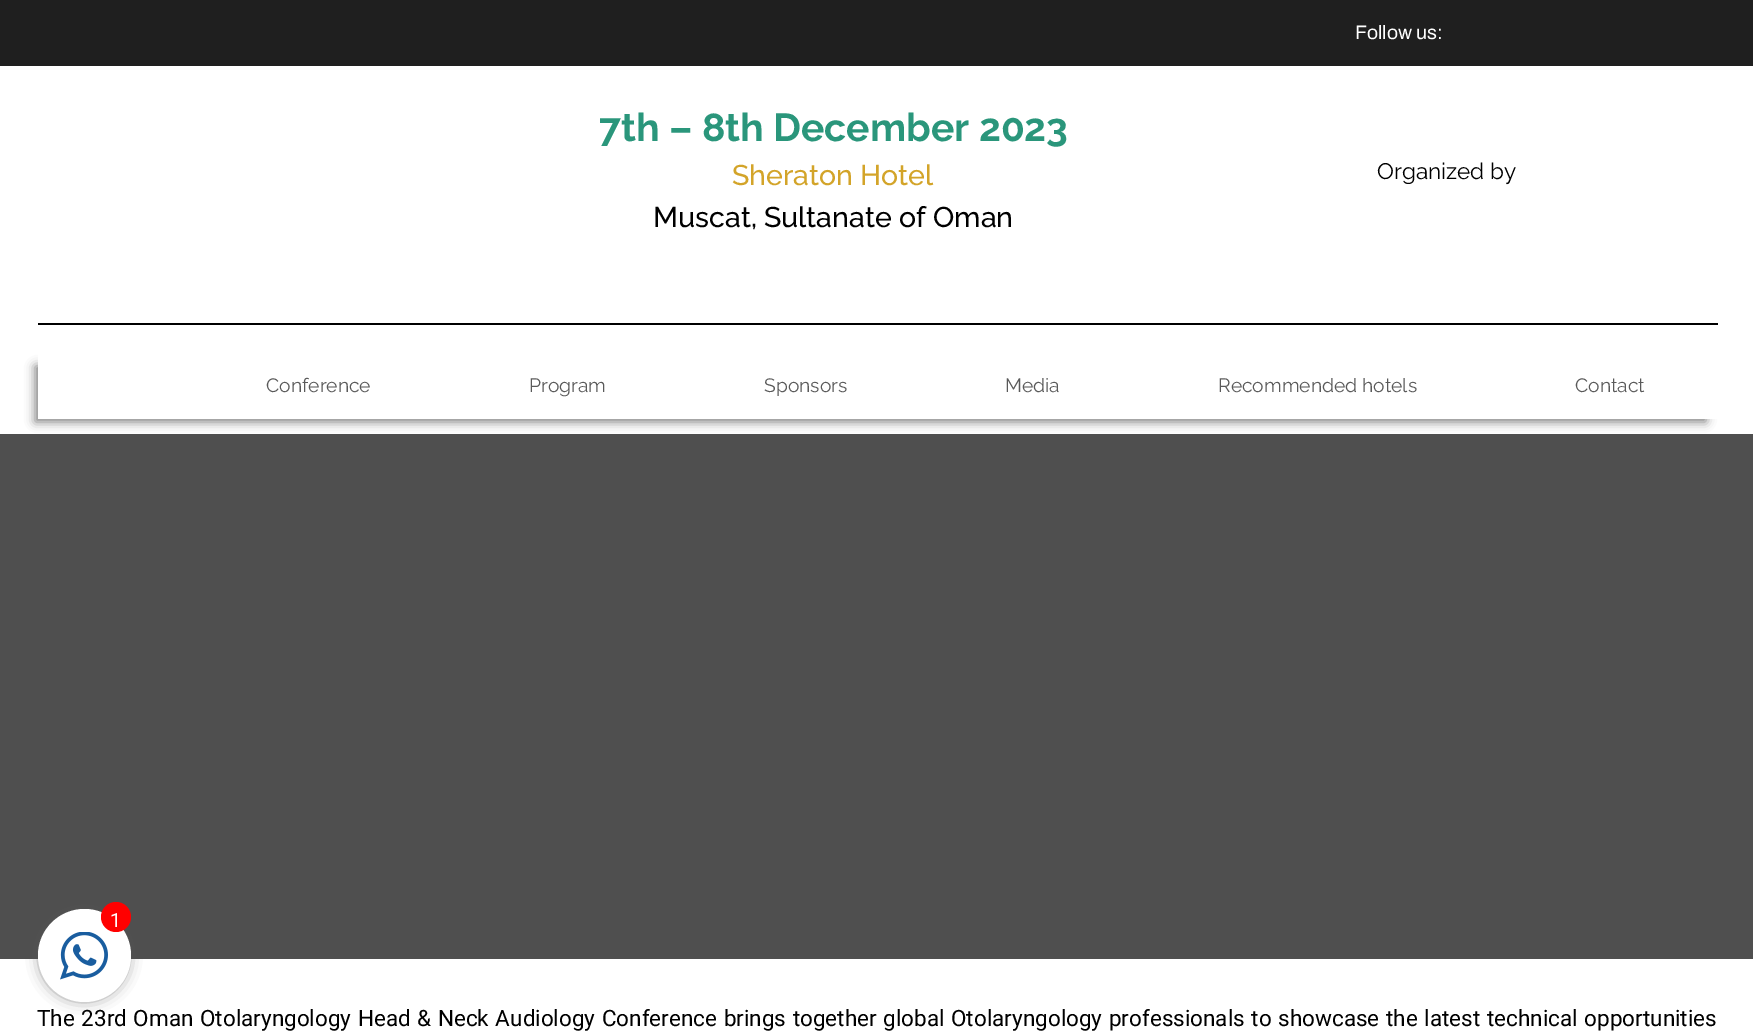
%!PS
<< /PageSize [1753 1032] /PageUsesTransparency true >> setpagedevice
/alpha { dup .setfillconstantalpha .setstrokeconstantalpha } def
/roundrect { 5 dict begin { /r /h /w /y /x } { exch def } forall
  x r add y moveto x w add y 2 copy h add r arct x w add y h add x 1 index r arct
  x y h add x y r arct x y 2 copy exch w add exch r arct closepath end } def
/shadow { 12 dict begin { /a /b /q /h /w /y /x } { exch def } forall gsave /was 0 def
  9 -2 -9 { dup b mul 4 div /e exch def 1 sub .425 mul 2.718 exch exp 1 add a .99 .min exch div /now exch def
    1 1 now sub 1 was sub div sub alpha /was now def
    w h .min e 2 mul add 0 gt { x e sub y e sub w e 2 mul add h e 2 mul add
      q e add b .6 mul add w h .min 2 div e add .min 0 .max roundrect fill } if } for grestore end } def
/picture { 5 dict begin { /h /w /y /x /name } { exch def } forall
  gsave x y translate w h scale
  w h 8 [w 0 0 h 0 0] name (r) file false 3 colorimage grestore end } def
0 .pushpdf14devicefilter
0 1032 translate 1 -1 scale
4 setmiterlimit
1 setgray
0 0 1753 1032 rectfill
0.122 setgray
0 0 1753 66 rectfill
/Archivo-Regular [19.5 0 0 -19.5 0 0] selectfont
1 setgray
1355 39 moveto (Follow us:) show
/Raleway-Bold [39 0 0 -39 0 0] selectfont
0.165 0.588 0.482 setrgbcolor
599 141 moveto (7th – 8th December 2023) show
/Raleway-Medium [28.5 0 0 -28.5 0 0] selectfont
0.827 0.643 0.161 setrgbcolor
732 185 moveto (Sheraton Hotel) show
0 setgray
653 227 moveto (Muscat, Sultanate of Oman) show
/Raleway-Regular [22.5 0 0 -22.5 0 0] selectfont
1377 179 moveto (Organized by) show
38 323 1680 2 rectfill
0.31 setgray
0 434 1753 525 rectfill
gsave
newpath 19 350 moveto 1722 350 lineto 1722 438 lineto 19 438 lineto closepath 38 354 moveto 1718 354 lineto 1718 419 lineto 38 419 lineto closepath eoclip newpath
0 setgray
35 366 1671 56 0 5 0.5 shadow
grestore
/Raleway-Regular [19.25 0 0 -19.25 0 0] selectfont
0.353 setgray
266 392 moveto (Conference) show
529 392 moveto (Program) show
764 392 moveto (Sponsors) show
1005 392 moveto (Media) show
1218 392 moveto (Recommended hotels) show
1575 392 moveto (Contact) show
/Roboto-Regular [22.5 0 0 -22.5 0 0] selectfont
0 setgray
37 1026 moveto 1 0 32 (The 23rd Oman Otolaryngology Head & Neck Audiology Conference brings together global Otolaryngology professionals to showcase the latest technical opportunities) widthshow
0.353 setgray
42 914 84 84 42 7.5 1 shadow
1 setgray
newpath 84.5 955.5 46.5 0 360 arc closepath fill
1 0 0 setrgbcolor
newpath 116 917 15 0 360 arc closepath fill
/Roboto-Regular [19.5 0 0 -19.5 0 0] selectfont
1 setgray
110 927 moveto (1) show
(img1.rgb) 60 932 48 48 picture
.poppdf14devicefilter showpage
